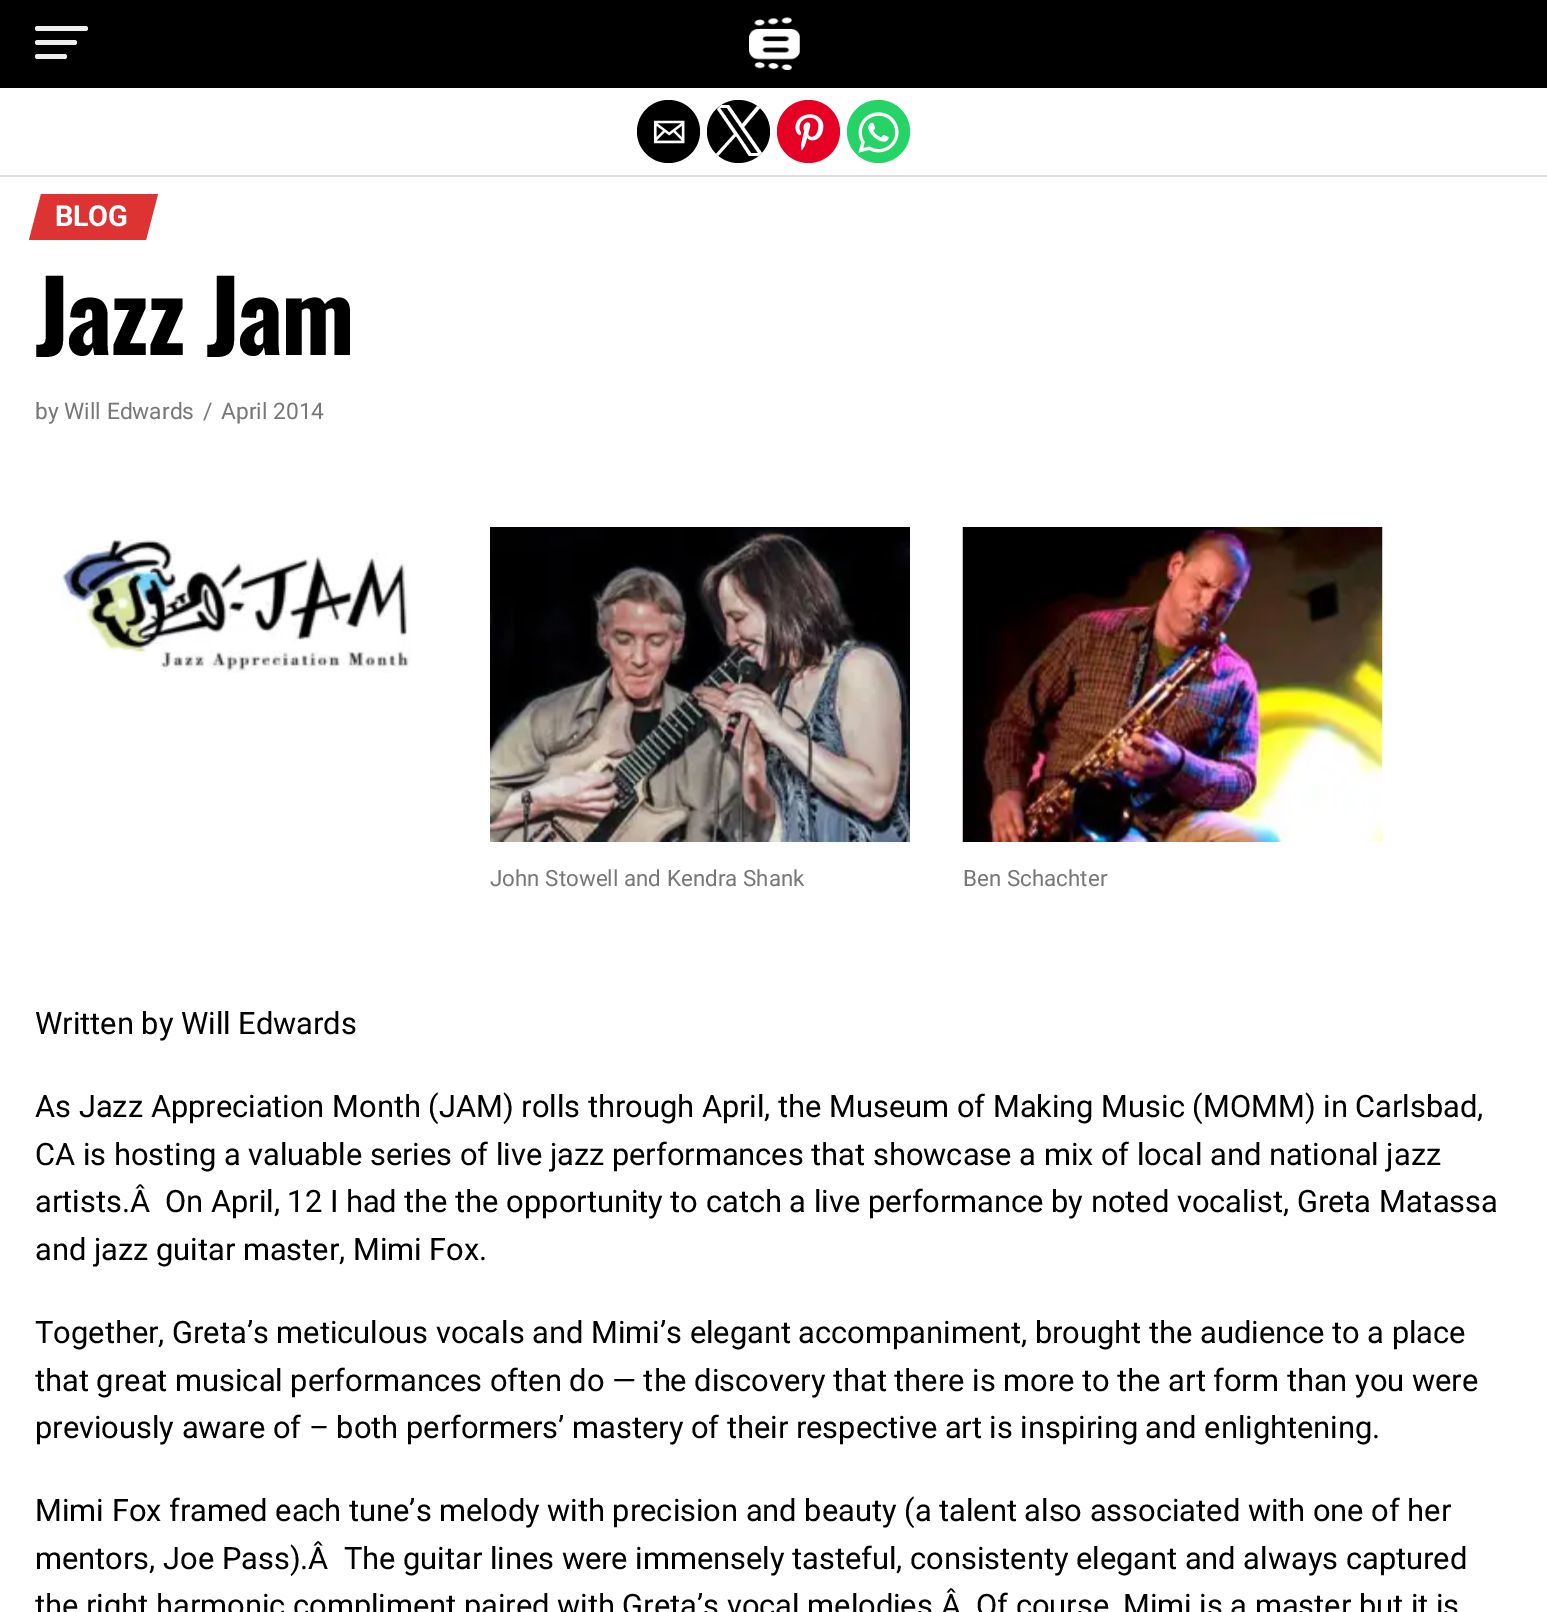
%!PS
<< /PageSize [1547 1612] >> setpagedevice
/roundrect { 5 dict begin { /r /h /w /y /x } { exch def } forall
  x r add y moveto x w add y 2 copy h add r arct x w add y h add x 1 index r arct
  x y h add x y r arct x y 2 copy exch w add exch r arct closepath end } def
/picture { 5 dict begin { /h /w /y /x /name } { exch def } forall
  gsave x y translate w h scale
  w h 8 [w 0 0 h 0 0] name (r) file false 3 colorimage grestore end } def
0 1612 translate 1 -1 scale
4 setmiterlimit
1 setgray
0 0 1547 1612 rectfill
0 setgray
0 0 1547 88 rectfill
0.933 setgray
35 26 53 5 2.5 roundrect fill
35 40 42 5 2.5 roundrect fill
35 54 32 5 2.5 roundrect fill
(img1.rgb) 749 17 51 53 picture
0.867 setgray
0 175 1547 2 rectfill
0 setgray
newpath 668.5 131.5 31.5 0 360 arc closepath fill
(img2.rgb) 653 120 32 24 picture
newpath 738.5 131.5 31.5 0 360 arc closepath fill
1 setgray
newpath 744 127 moveto 762 153 lineto 758 156 lineto 749 156 lineto 736 136 lineto 718 156 lineto 716 154 lineto 734 134 lineto 717 109 lineto 721 105 lineto 729 105 lineto 742 124 lineto 757 106 lineto 760 108 lineto closepath 738 134 moveto 751 153 lineto 758 153 lineto 727 108 lineto 720 108 lineto closepath eofill
0.902 0 0.137 setrgbcolor
newpath 808.5 131.5 31.5 0 360 arc closepath fill
(img3.rgb) 795 114 29 37 picture
0.145 0.827 0.4 setrgbcolor
newpath 878.5 131.5 31.5 0 360 arc closepath fill
(img4.rgb) 858 112 41 41 picture
0.867 0.2 0.2 setrgbcolor
newpath 41 194 moveto 158 194 lineto 146 240 lineto 29 240 lineto closepath fill
/Roboto-Bold [29 0 0 -29 0 0] selectfont
1 setgray
55 226 moveto -0.5 0 (BLOG) ashow
/Oswald-Bold [98 0 0 -98 0 0] selectfont
0 setgray
35 355 moveto -2 0 (Jazz Jam) ashow
/Roboto-Regular [22.75 0 0 -22.75 0 0] selectfont
0.467 setgray
35 419 moveto (by Will Edwards) show
203 419 moveto (/) show
221 419 moveto (April 2014) show
(img5.rgb) 60 539 351 134 picture
(img6.rgb) 490 527 420 315 picture
/Roboto-Regular [22.4 0 0 -22.4 0 0] selectfont
490 886 moveto (John Stowell and Kendra Shank) show
(img7.rgb) 962 527 421 315 picture
963 886 moveto (Ben Schachter) show
/Roboto-Regular [30.8 0 0 -30.8 0 0] selectfont
0 setgray
35 1034 moveto (Written by Will Edwards) show
35 1117 moveto (As Jazz Appreciation Month \(JAM\) rolls through April, the Museum of Making Music \(MOMM\) in Carlsbad,) show
35 1165 moveto (CA is hosting a valuable series of live jazz performances that showcase a mix of local and national jazz) show
35 1212 moveto (artists.Â  On April, 12 I had the the opportunity to catch a live performance by noted vocalist, Greta Matassa) show
35 1260 moveto (and jazz guitar master, Mimi Fox.) show
35 1343 moveto (Together, Greta’s meticulous vocals and Mimi’s elegant accompaniment, brought the audience to a place) show
35 1391 moveto (that great musical performances often do — the discovery that there is more to the art form than you were) show
35 1438 moveto (previously aware of – both performers’ mastery of their respective art is inspiring and enlightening.) show
35 1521 moveto (Mimi Fox framed each tune’s melody with precision and beauty \(a talent also associated with one of her) show
35 1569 moveto (mentors, Joe Pass\).Â  The guitar lines were immensely tasteful, consistenty elegant and always captured) show
35 1616 moveto (the right harmonic compliment paired with Greta’s vocal melodies.Â  Of course, Mimi is a master but it is) show
showpage
